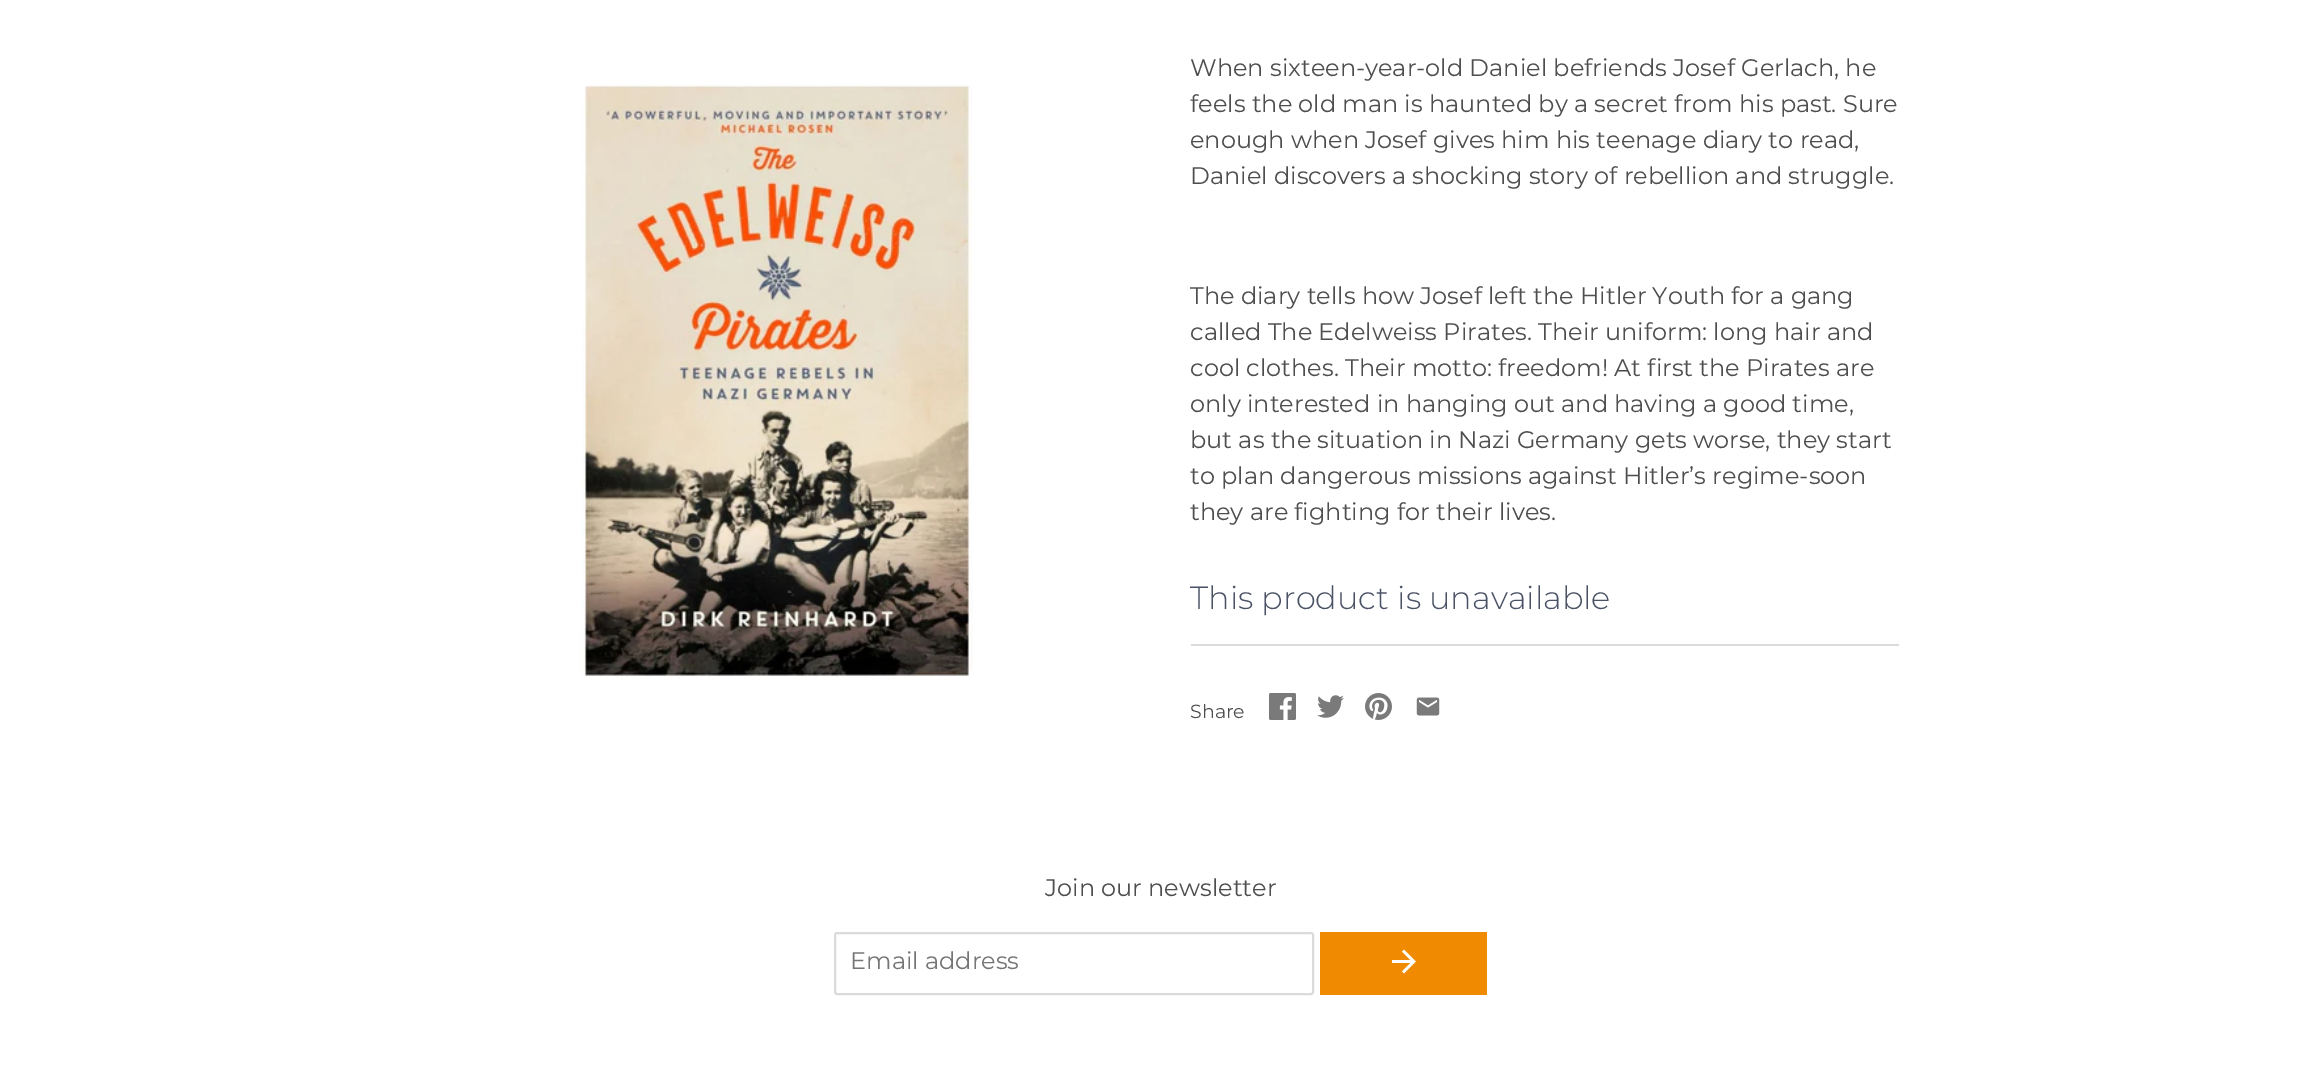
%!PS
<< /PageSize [2320 1067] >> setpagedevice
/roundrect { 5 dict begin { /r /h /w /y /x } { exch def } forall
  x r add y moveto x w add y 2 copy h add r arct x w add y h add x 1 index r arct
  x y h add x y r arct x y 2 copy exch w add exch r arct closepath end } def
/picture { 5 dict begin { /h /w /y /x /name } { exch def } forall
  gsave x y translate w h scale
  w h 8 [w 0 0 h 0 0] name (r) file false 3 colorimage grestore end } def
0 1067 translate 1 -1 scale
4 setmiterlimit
1 setgray
0 0 2320 1067 rectfill
(img1.rgb) 581 85 392 593 picture
/Montserrat-Regular [24 0 0 -24 0 0] selectfont
0.306 setgray
1190 76 moveto (When sixteen-year-old Daniel befriends Josef Gerlach, he) show
1190 112 moveto (feels the old man is haunted by a secret from his past. Sure) show
1190 148 moveto (enough when Josef gives him his teenage diary to read,) show
1190 184 moveto (Daniel discovers a shocking story of rebellion and struggle.) show
1190 304 moveto (The diary tells how Josef left the Hitler Youth for a gang) show
1190 340 moveto (called The Edelweiss Pirates. Their uniform: long hair and) show
1190 376 moveto (cool clothes. Their motto: freedom! At first the Pirates are) show
1190 412 moveto (only interested in hanging out and having a good time,) show
1190 448 moveto (but as the situation in Nazi Germany gets worse, they start) show
1190 484 moveto (to plan dangerous missions against Hitler’s regime-soon) show
1190 520 moveto (they are fighting for their lives.) show
/Montserrat-Light [32 0 0 -32 0 0] selectfont
0.29 0.322 0.396 setrgbcolor
1190 609 moveto (This product is unavailable) show
0.859 setgray
1191 644 708 2 rectfill
/Montserrat-Regular [19 0 0 -19 0 0] selectfont
0.306 setgray
1190 718 moveto (Share) show
(img2.rgb) 1269 693 27 27 picture
(img3.rgb) 1317 695 27 23 picture
(img4.rgb) 1365 693 27 27 picture
(img5.rgb) 1416 697 24 19 picture
/Montserrat-Regular [24 0 0 -24 0 0] selectfont
1045 896 moveto (Join our newsletter) show
0.859 setgray
2 setlinewidth
835 933 478 61 2 roundrect stroke
0.459 setgray
850 969 moveto (Email address) show
0.941 0.541 0 setrgbcolor
1320 932 167 63 rectfill
(img6.rgb) 1392 949 24 25 picture
showpage
